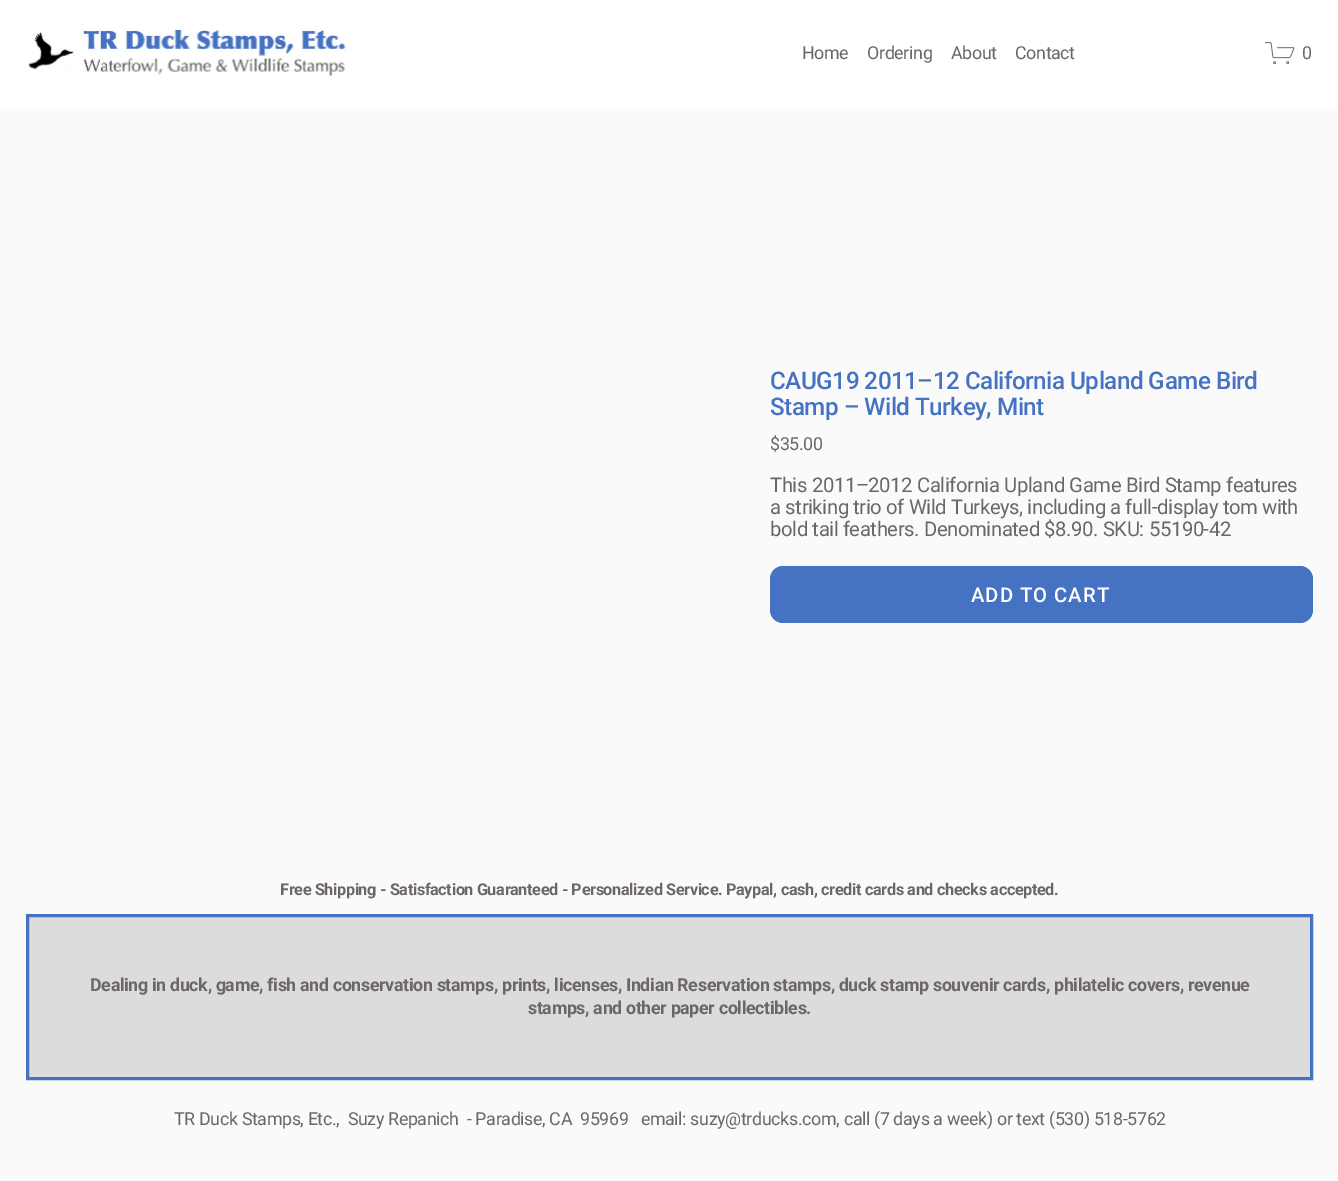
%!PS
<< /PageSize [1338 1181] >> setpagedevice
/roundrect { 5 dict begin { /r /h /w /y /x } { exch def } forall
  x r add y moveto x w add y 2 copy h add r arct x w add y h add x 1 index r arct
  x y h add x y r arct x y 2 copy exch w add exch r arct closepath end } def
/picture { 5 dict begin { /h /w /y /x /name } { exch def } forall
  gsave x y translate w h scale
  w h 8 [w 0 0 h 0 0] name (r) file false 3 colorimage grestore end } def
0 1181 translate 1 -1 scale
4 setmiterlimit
0.98 setgray
0 0 1338 1181 rectfill
1 setgray
0 0 1338 109 rectfill
(img1.rgb) 28 29 318 48 picture
/Roboto-Regular [17.85 0 0 -17.85 0 0] selectfont
0.424 0.404 0.4 setrgbcolor
802 59 moveto -0.36 0 (Home) ashow
867 59 moveto -0.36 0 (Ordering) ashow
951 59 moveto -0.36 0 (About) ashow
1015 59 moveto -0.36 0 (Contact) ashow
(img2.rgb) 1265 42 30 23 picture
1302 59 moveto -0.36 0 (0) ashow
/Roboto-Medium [24.25 0 0 -24.25 0 0] selectfont
0.275 0.447 0.769 setrgbcolor
770 389 moveto -0.5 0 (CAUG19 2011–12 California Upland Game Bird) ashow
770 415 moveto -0.5 0 (Stamp – Wild Turkey, Mint) ashow
/Roboto-Regular [17.85 0 0 -17.85 0 0] selectfont
0.424 0.404 0.4 setrgbcolor
770 450 moveto -0.36 0 ($35.00) ashow
/Roboto-Regular [20.25 0 0 -20.25 0 0] selectfont
770 492 moveto -0.4 0 (This 2011–2012 California Upland Game Bird Stamp features) ashow
770 514 moveto -0.4 0 (a striking trio of Wild Turkeys, including a full-display tom with) ashow
770 536 moveto -0.4 0 (bold tail feathers. Denominated $8.90. SKU: 55190-42) ashow
0.275 0.447 0.769 setrgbcolor
770 566 543 57 13 roundrect fill
/Roboto-Medium [20.25 0 0 -20.25 0 0] selectfont
1 setgray
971 602 moveto 1 0 (ADD TO CART) ashow
/Roboto-Bold [16.25 0 0 -16.25 0 0] selectfont
0.424 0.404 0.4 setrgbcolor
280 895 moveto -0.36 0 (Free Shipping - Satisfaction Guaranteed - Personalized Service. Paypal, cash, credit cards and checks accepted.) ashow
0.863 setgray
newpath 27.5 915.5 moveto 1311.5 915.5 lineto 1311.5 1078.5 lineto 27.5 1078.5 lineto closepath gsave fill grestore
0.275 0.447 0.769 setrgbcolor
3 setlinewidth
stroke
/Roboto-Bold [17.85 0 0 -17.85 0 0] selectfont
0.424 0.404 0.4 setrgbcolor
90 991 moveto -0.36 0 (Dealing in duck, game, fish and conservation stamps, prints, licenses, Indian Reservation stamps, duck stamp souvenir cards, philatelic covers, revenue) ashow
528 1014 moveto -0.36 0 (stamps, and other paper collectibles.) ashow
/Roboto-Regular [17.85 0 0 -17.85 0 0] selectfont
174 1125 moveto -0.36 0 (TR Duck Stamps, Etc.,  Suzy Repanich  - Paradise, CA  95969   email: suzy@trducks.com, call \(7 days a week\) or text \(530\) 518-5762) ashow
showpage
